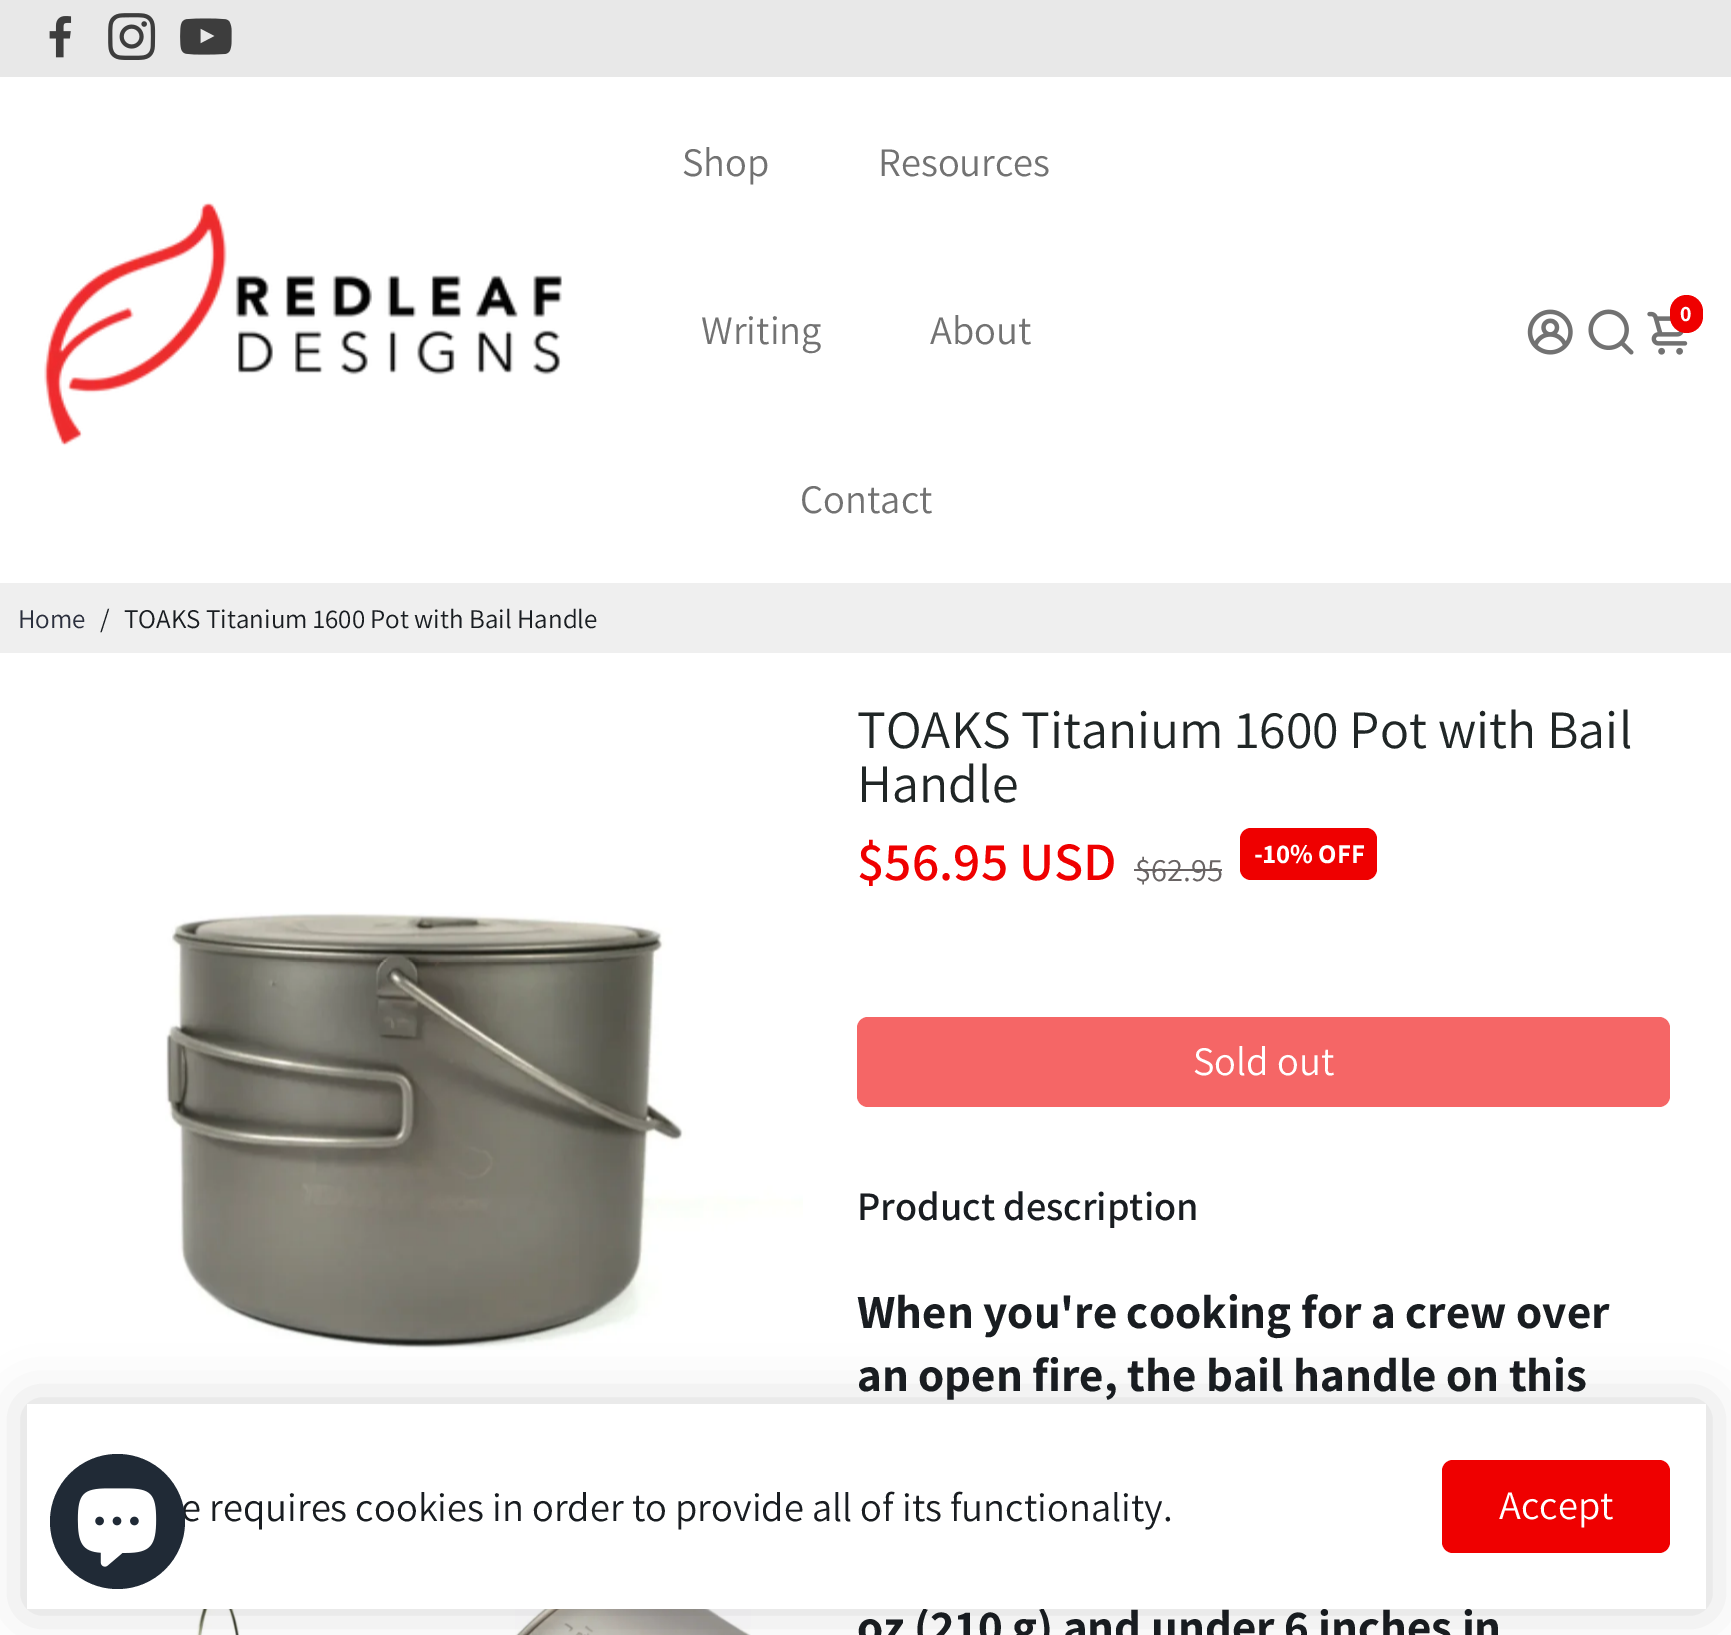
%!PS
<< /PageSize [1731 1635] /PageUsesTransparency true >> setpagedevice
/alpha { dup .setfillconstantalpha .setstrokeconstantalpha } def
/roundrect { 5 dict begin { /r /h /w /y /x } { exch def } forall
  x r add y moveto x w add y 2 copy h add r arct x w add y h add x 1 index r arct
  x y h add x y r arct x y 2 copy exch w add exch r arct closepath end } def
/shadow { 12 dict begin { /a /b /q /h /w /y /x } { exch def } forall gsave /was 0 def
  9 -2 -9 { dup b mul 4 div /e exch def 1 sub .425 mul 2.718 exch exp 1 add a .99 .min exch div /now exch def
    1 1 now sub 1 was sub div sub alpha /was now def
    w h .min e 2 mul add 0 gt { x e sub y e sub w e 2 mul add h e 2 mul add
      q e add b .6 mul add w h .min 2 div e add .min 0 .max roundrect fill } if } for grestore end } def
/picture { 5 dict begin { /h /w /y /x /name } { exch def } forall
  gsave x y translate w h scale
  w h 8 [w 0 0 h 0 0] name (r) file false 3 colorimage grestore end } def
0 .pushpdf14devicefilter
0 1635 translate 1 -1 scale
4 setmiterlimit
1 setgray
0 0 1731 1635 rectfill
0.91 setgray
0 0 1731 77 rectfill
(img1.rgb) 49 16 23 42 picture
(img2.rgb) 108 13 48 47 picture
(img3.rgb) 180 18 52 37 picture
(img4.rgb) 44 202 518 244 picture
/Assistant-Regular [40.5 0 0 -40.5 0 0] selectfont
0.447 setgray
682 176 moveto (Shop) show
878 176 moveto (Resources) show
701 344 moveto (Writing) show
930 344 moveto (About) show
800 513 moveto (Contact) show
(img5.rgb) 1527 309 46 46 picture
(img6.rgb) 1588 309 46 46 picture
(img7.rgb) 1647 311 41 44 picture
0.937 0 0 setrgbcolor
1670 295 33 38 16.5 roundrect fill
/Assistant-Bold [22 0 0 -22 0 0] selectfont
1 setgray
1680 321 moveto (0) show
0.937 setgray
0 583 1731 70 rectfill
/Assistant-Regular [27 0 0 -27 0 0] selectfont
0.169 0.184 0.239 setrgbcolor
18 628 moveto (Home) show
0.098 0.114 0.129 setrgbcolor
100 628 moveto (/) show
124 628 moveto (TOAKS Titanium 1600 Pot with Bail Handle) show
(img8.rgb) 165 912 638 438 picture
(img9.rgb) 196 1609 44 26 picture
(img10.rgb) 515 1609 236 26 picture
/Assistant-Regular [54 0 0 -54 0 0] selectfont
0.125 0.149 0.149 setrgbcolor
857 748 moveto (TOAKS Titanium 1600 Pot with Bail) show
857 802 moveto (Handle) show
/Assistant-SemiBold [54 0 0 -54 0 0] selectfont
0.937 0 0 setrgbcolor
857 880 moveto ($56.95 USD) show
1240 828 137 52 11 roundrect fill
/Assistant-Bold [27 0 0 -27 0 0] selectfont
1 setgray
1254 863 moveto (-10% OFF) show
/Assistant-Regular [32.5 0 0 -32.5 0 0] selectfont
0.408 0.388 0.388 setrgbcolor
1135 881 moveto ($62.95) show
1134 869 88 2 rectfill
0.961 0.4 0.4 setrgbcolor
857 1017 813 90 11 roundrect fill
/Assistant-Regular [40.5 0 0 -40.5 0 0] selectfont
1 setgray
1193 1075 moveto (Sold out) show
/Assistant-SemiBold [40.5 0 0 -40.5 0 0] selectfont
0.098 0.114 0.129 setrgbcolor
857 1220 moveto (Product description) show
/Assistant-Bold [47.4 0 0 -47.4 0 0] selectfont
857 1328 moveto (When you're cooking for a crew over) show
857 1391 moveto (an open fire, the bail handle on this) show
857 1643 moveto (oz \(210 g\) and under 6 inches in) show
0 setgray
27 1404 1679 205 0 27 0.16 shadow
1 setgray
27 1404 1679 205 rectfill
/Assistant-Regular [40.5 0 0 -40.5 0 0] selectfont
0.098 0.114 0.129 setrgbcolor
181 1521 moveto (e requires cookies in order to provide all of its functionality.) show
0.125 0.165 0.212 setrgbcolor
newpath 117.5 1521.5 67.5 0 360 arc closepath fill
(img11.rgb) 77 1488 80 79 picture
0.937 0 0 setrgbcolor
1442 1460 228 93 11 roundrect fill
1 setgray
1499 1519 moveto (Accept) show
.poppdf14devicefilter showpage
